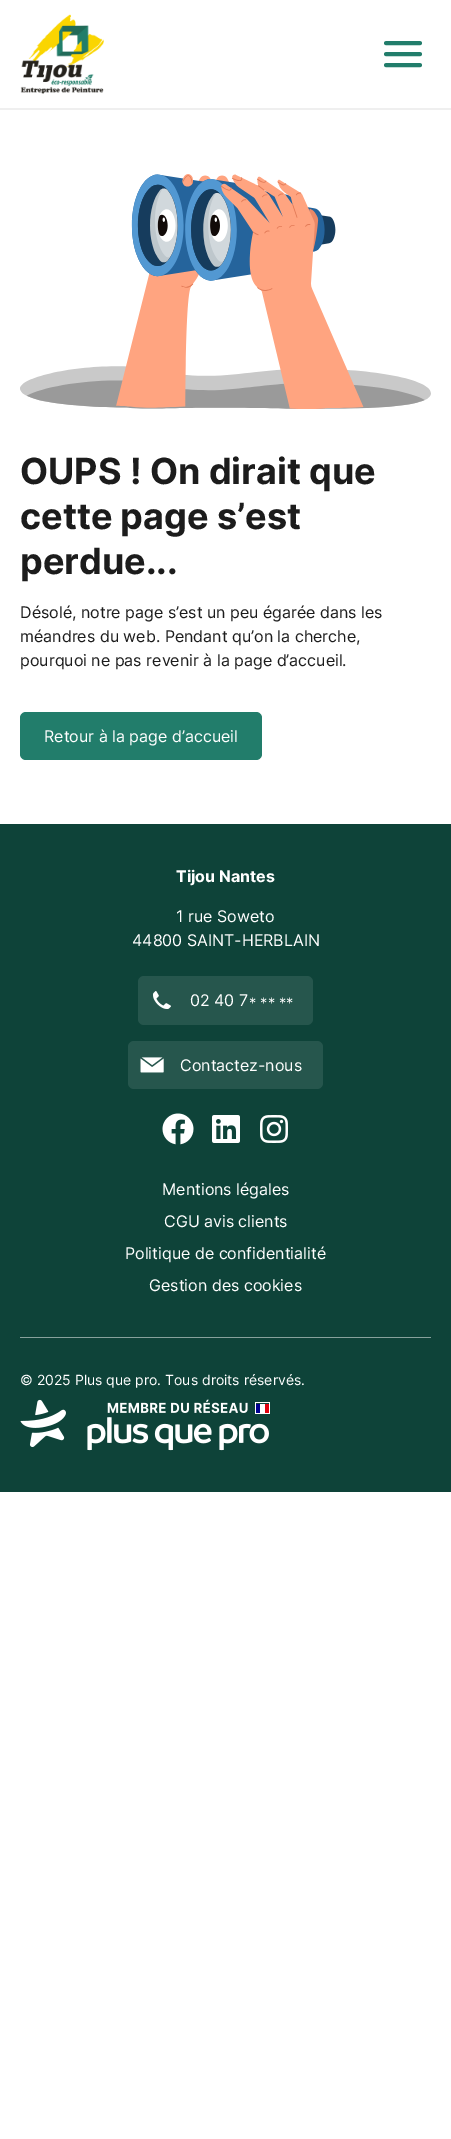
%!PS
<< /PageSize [451 2139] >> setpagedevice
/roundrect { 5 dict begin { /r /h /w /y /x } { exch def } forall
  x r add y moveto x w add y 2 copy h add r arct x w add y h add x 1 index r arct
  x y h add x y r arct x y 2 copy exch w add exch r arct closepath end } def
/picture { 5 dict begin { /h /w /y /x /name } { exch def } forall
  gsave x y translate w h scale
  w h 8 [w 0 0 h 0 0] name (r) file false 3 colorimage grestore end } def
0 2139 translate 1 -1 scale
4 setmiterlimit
1 setgray
0 0 451 2139 rectfill
0.937 setgray
0 108 451 2 rectfill
(img1.rgb) 20 14 84 80 picture
0.133 0.49 0.42 setrgbcolor
3.9 setlinewidth
1 setlinecap
newpath 386 43 moveto 420 43 lineto 386 54 moveto 420 54 lineto 386 65 moveto 420 65 lineto stroke
(img2.rgb) 20 174 411 235 picture
/Inter-Bold [36 0 0 -36 0 0] selectfont
0.11 setgray
20 484 moveto (OUPS ! On dirait que) show
20 529 moveto (cette page s’est) show
20 574 moveto (perdue...) show
/Inter-Regular [16 0 0 -16 0 0] selectfont
20 618 moveto (Désolé, notre page s’est un peu égarée dans les) show
20 642 moveto (méandres du web. Pendant qu’on la cherche,) show
20 666 moveto (pourquoi ne pas revenir à la page d’accueil.) show
0.133 0.49 0.42 setrgbcolor
20 712 242 48 6 roundrect fill
1 setgray
44 742 moveto (Retour à la page d’accueil) show
0.055 0.263 0.224 setrgbcolor
0 824 451 668 rectfill
/Inter-Bold [16 0 0 -16 0 0] selectfont
1 setgray
176 882 moveto (Tijou Nantes) show
/Inter-Regular [16 0 0 -16 0 0] selectfont
176 922 moveto (1 rue Soweto) show
132 946 moveto (44800 SAINT-HERBLAIN) show
0.149 0.337 0.302 setrgbcolor
138 976 175 49 6 roundrect fill
(img3.rgb) 153 991 18 18 picture
1 setgray
190 1006 moveto (02 40 7) show
/Inter-Regular [14.5 0 0 -14.5 0 0] selectfont
249 1008 moveto (* ** **) show
0.149 0.337 0.302 setrgbcolor
128 1041 195 48 6 roundrect fill
(img4.rgb) 140 1057 24 16 picture
/Inter-Regular [16 0 0 -16 0 0] selectfont
1 setgray
180 1071 moveto (Contactez-nous) show
(img5.rgb) 162 1113 32 32 picture
(img6.rgb) 212 1115 28 28 picture
(img7.rgb) 260 1115 28 28 picture
162 1195 moveto (Mentions légales) show
164 1227 moveto (CGU avis clients) show
125 1259 moveto (Politique de confidentialité) show
149 1291 moveto (Gestion des cookies) show
0.529 0.631 0.612 setrgbcolor
20 1337 411 1 rectfill
/Inter-Regular [14 0 0 -14 0 0] selectfont
1 setgray
20 1385 moveto (© 2025 Plus que pro. Tous droits réservés.) show
(img8.rgb) 20 1399 250 52 picture
showpage
